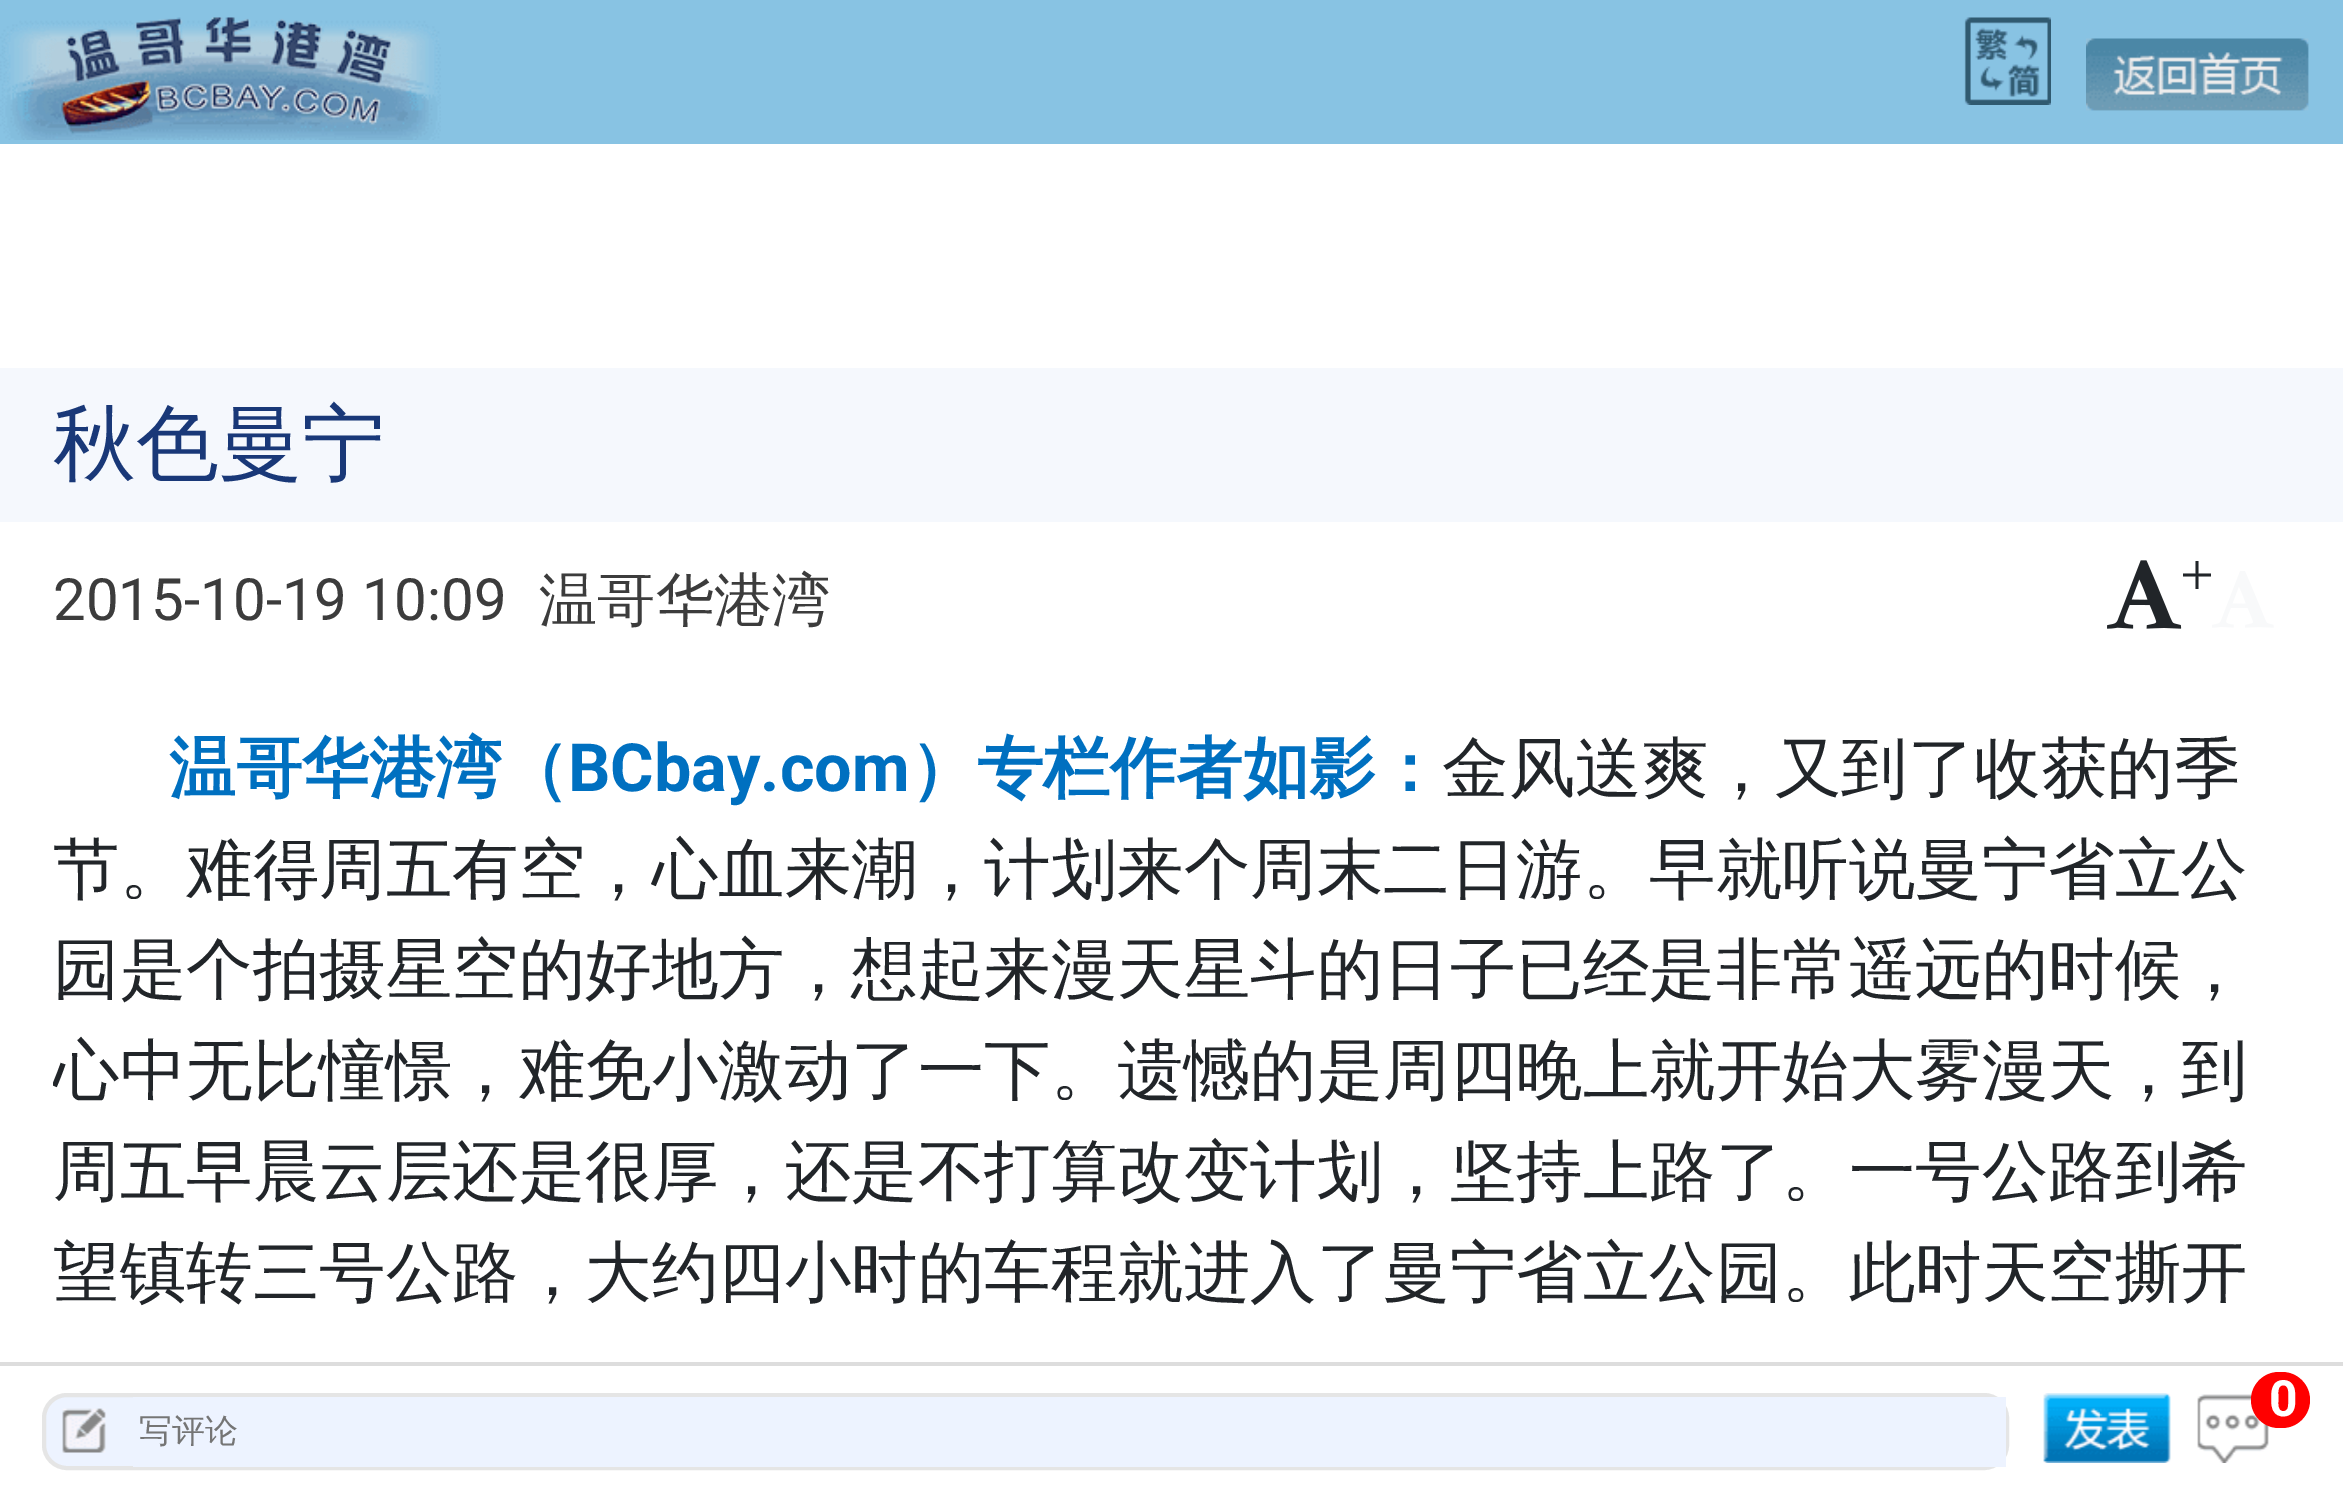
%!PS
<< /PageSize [2343 1497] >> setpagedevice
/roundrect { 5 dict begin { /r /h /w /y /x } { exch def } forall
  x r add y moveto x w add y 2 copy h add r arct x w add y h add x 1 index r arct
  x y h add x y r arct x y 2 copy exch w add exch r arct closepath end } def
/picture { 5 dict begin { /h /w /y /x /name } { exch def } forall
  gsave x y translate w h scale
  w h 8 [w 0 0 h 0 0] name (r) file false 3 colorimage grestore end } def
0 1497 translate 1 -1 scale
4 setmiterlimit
1 setgray
0 0 2343 1497 rectfill
0.533 0.765 0.89 setrgbcolor
0 0 2343 144 rectfill
(img1.rgb) 0 17 441 123 picture
(img2.rgb) 1964 17 87 88 picture
(img3.rgb) 2086 38 223 73 picture
0.961 0.973 0.992 setrgbcolor
0 368 2343 154 rectfill
/WenQuanYiZenHei-Medium [83 0 0 -83 0 0] selectfont
0.098 0.22 0.471 setrgbcolor
53 472 moveto (秋色曼宁) show
/Roboto-Regular [58.25 0 0 -58.25 0 0] selectfont
0.235 setgray
53 620 moveto (2015-10-19 10:09) show
/WenQuanYiZenHei-Medium [58.25 0 0 -58.25 0 0] selectfont
539 620 moveto (温哥华港湾) show
(img4.rgb) 2107 560 75 69 picture
/LiberationSerif-Regular [60 0 0 -60 0 0] selectfont
0.129 0.145 0.161 setrgbcolor
2180 595 moveto (+) show
(img5.rgb) 2212 571 62 57 picture
/WenQuanYiZenHei-Bold [66.5 0 0 -66.5 0 0] selectfont
0 0.439 0.753 setrgbcolor
169 791 moveto (温哥华港湾（) show
/Roboto-Bold [66.5 0 0 -66.5 0 0] selectfont
568 791 moveto (BCbay.com) show
/WenQuanYiZenHei-Bold [66.5 0 0 -66.5 0 0] selectfont
910 791 moveto (）专栏作者如影：) show
/WenQuanYiZenHei-Medium [66.5 0 0 -66.5 0 0] selectfont
0.129 0.145 0.161 setrgbcolor
1442 791 moveto (金风送爽，又到了收获的季) show
53 892 moveto (节。难得周五有空，心血来潮，计划来个周末二日游。早就听说曼宁省立公) show
53 992 moveto (园是个拍摄星空的好地方，想起来漫天星斗的日子已经是非常遥远的时候，) show
gsave
53 721 2240 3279 rectclip
53 1093 moveto (心中无比憧憬，难免小激动了一下。遗憾的是周四晚上就开始大雾漫天，到) show
grestore
53 1194 moveto (周五早晨云层还是很厚，还是不打算改变计划，坚持上路了。一号公路到希) show
53 1295 moveto (望镇转三号公路，大约四小时的车程就进入了曼宁省立公园。此时天空撕开) show
0.867 setgray
0 1362 2343 4 rectfill
0.929 0.953 1 setrgbcolor
44 1395 1963 73 23 roundrect gsave fill grestore
0.898 setgray
4 setlinewidth
stroke
(img6.rgb) 62 1408 44 45 picture
0.929 0.953 1 setrgbcolor
133 1397 1873 70 rectfill
/WenQuanYiZenHei-Medium [33 0 0 -33 0 0] selectfont
0.459 setgray
139 1442 moveto (写评论) show
(img7.rgb) 2043 1393 128 70 picture
(img8.rgb) 2197 1394 72 69 picture
1 0 0 setrgbcolor
2251 1372 59 56 28 roundrect fill
/Roboto-Bold [50 0 0 -50 0 0] selectfont
1 setgray
2269 1416 moveto -4 0 (0) ashow
showpage
